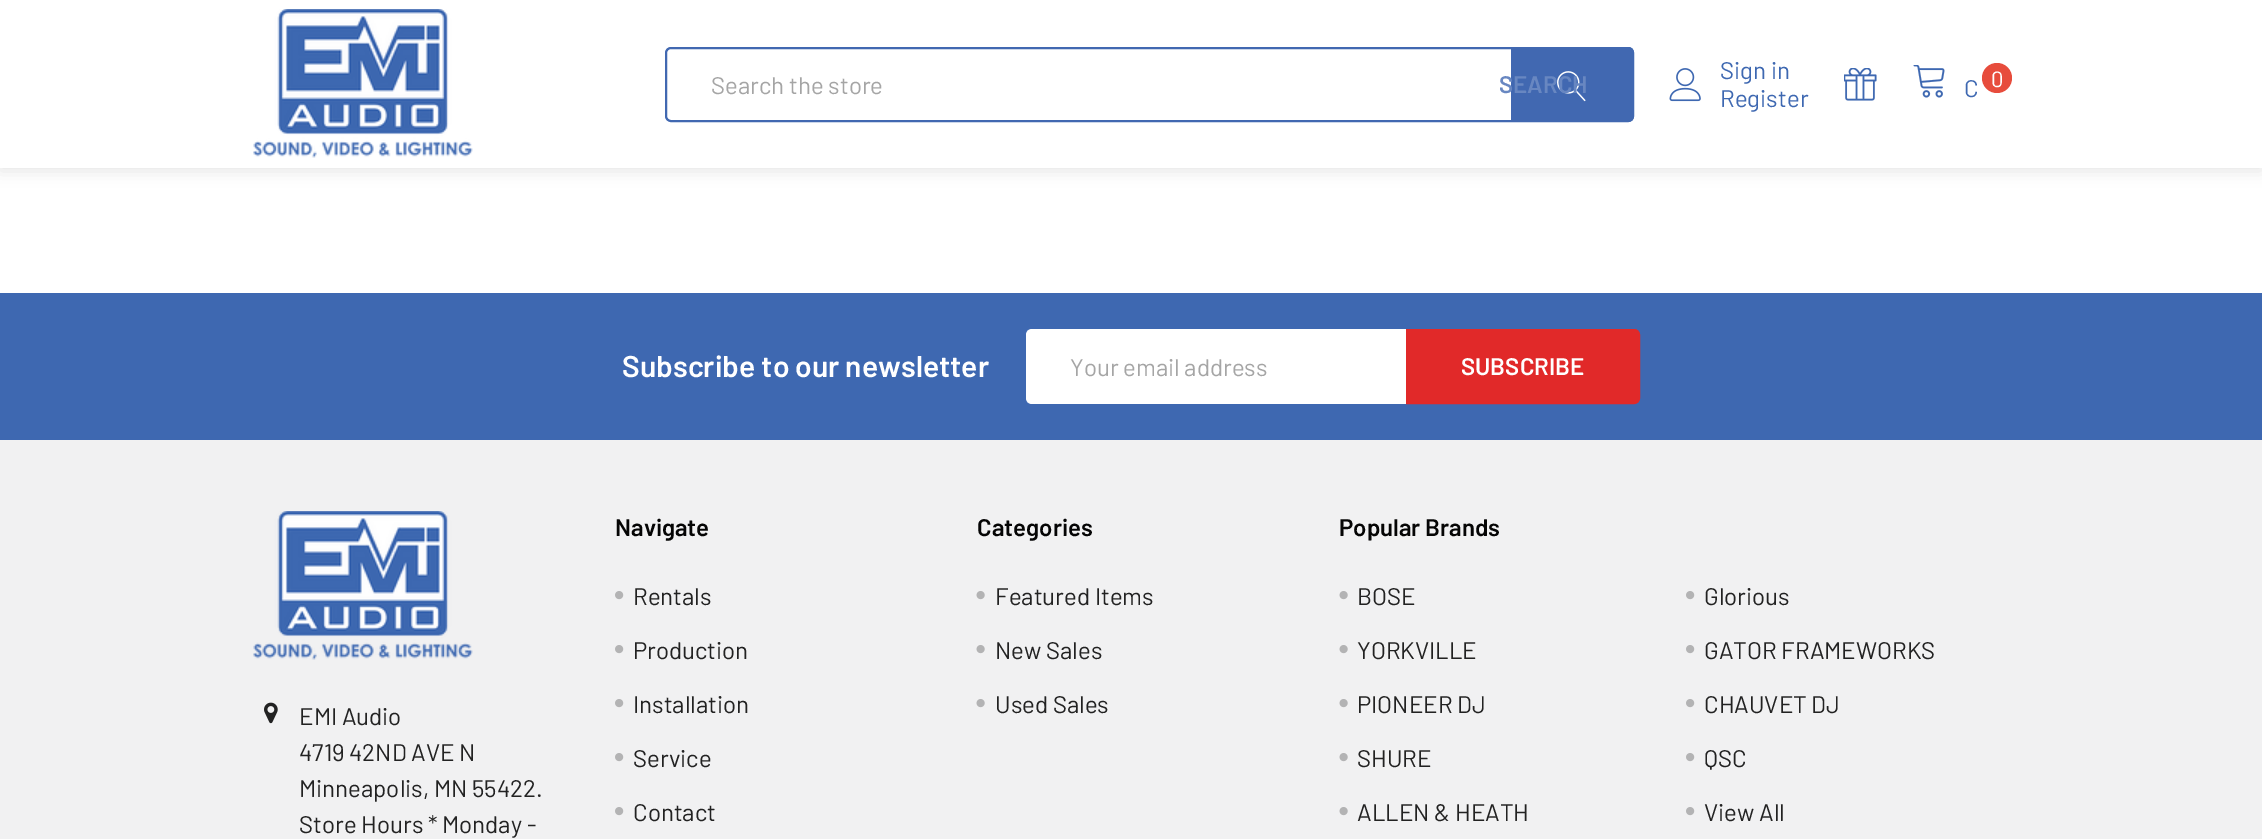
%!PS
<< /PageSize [2262 839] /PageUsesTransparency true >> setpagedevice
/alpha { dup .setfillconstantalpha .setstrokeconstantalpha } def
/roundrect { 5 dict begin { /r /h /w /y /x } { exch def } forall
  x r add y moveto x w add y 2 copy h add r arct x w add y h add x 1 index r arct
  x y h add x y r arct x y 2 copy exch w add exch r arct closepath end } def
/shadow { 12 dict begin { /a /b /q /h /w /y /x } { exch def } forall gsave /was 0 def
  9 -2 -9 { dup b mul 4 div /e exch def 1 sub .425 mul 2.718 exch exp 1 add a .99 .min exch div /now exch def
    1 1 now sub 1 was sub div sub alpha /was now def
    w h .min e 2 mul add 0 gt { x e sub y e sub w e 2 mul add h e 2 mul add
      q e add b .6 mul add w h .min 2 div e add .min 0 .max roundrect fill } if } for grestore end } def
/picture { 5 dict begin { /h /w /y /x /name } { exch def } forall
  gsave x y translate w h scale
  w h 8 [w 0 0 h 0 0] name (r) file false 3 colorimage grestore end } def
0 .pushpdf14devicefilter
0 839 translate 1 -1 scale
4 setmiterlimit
1 setgray
0 0 2262 839 rectfill
0 setgray
0 3 2262 168 0 7.5 0.1 shadow
1 setgray
0 0 2262 168 rectfill
(img1.rgb) 253 9 220 149 picture
0.255 0.408 0.694 setrgbcolor
2 setlinewidth
666 48 967 73 5 roundrect stroke
newpath 1511 47 moveto 1628 47 lineto 1631.5 47 1634 49.5 1634 53 curveto 1634 116 lineto 1634 119.5 1631.5 122 1628 122 curveto 1511 122 lineto closepath fill
(img2.rgb) 1557 71 29 31 picture
/Barlow-Regular [24 0 0 -24 0 0] selectfont
0.647 setgray
711 94 moveto (Search the store) show
/Barlow-SemiBold [24 0 0 -24 0 0] selectfont
0.408 0.529 0.757 setrgbcolor
1499 93 moveto (SEARCH) show
(img3.rgb) 1669 68 32 34 picture
/Barlow-Regular [24 0 0 -24 0 0] selectfont
0.243 0.408 0.694 setrgbcolor
1720 79 moveto (Sign in) show
1720 107 moveto (Register) show
(img4.rgb) 1844 68 33 33 picture
(img5.rgb) 1913 65 32 33 picture
1964 97 moveto (C) show
0.906 0.298 0.235 setrgbcolor
newpath 1997 78 15 0 360 arc closepath fill
/Barlow-Regular [22 0 0 -22 0 0] selectfont
1 setgray
1991 87 moveto (0) show
0.945 0.945 0.949 setrgbcolor
0 440 2262 399 rectfill
0.243 0.408 0.694 setrgbcolor
0 293 2262 147 rectfill
/Barlow-SemiBold [30 0 0 -30 0 0] selectfont
1 setgray
622 377 moveto (Subscribe to our newsletter) show
newpath 1032 329 moveto 1406 329 lineto 1406 404 lineto 1032 404 lineto 1028.5 404 1026 401.5 1026 398 curveto 1026 335 lineto 1026 331.5 1028.5 329 1032 329 curveto closepath fill
/Barlow-Regular [24 0 0 -24 0 0] selectfont
0.647 setgray
1070 376 moveto (Your email address) show
0.882 0.161 0.161 setrgbcolor
newpath 1407 330 moveto 1634 330 lineto 1637 330 1639 332 1639 335 curveto 1639 398 lineto 1639 401 1637 403 1634 403 curveto 1407 403 lineto closepath gsave fill grestore
stroke
/Barlow-SemiBold [24 0 0 -24 0 0] selectfont
1 setgray
1461 375 moveto (SUBSCRIBE) show
(img6.rgb) 253 511 220 149 picture
(img7.rgb) 264 702 14 22 picture
/Barlow-Regular [24 0 0 -24 0 0] selectfont
0.133 setgray
299 725 moveto (EMI Audio) show
299 761 moveto (4719 42ND AVE N) show
299 797 moveto (Minneapolis, MN 55422.) show
299 833 moveto (Store Hours * Monday -) show
/Barlow-SemiBold [24 0 0 -24 0 0] selectfont
0.02 setgray
615 536 moveto (Navigate) show
(img8.rgb) 615 591 9 9 picture
/Barlow-Regular [24 0 0 -24 0 0] selectfont
0.133 setgray
633 605 moveto (Rentals) show
(img8.rgb) 615 645 9 9 picture
633 659 moveto (Production) show
(img8.rgb) 615 699 9 9 picture
633 713 moveto (Installation) show
(img8.rgb) 615 753 9 9 picture
633 767 moveto (Service) show
(img8.rgb) 615 807 9 9 picture
633 821 moveto (Contact) show
/Barlow-SemiBold [24 0 0 -24 0 0] selectfont
0.02 setgray
977 536 moveto (Categories) show
(img9.rgb) 976 591 9 9 picture
/Barlow-Regular [24 0 0 -24 0 0] selectfont
0.133 setgray
995 605 moveto (Featured Items) show
(img9.rgb) 976 645 9 9 picture
995 659 moveto (New Sales) show
(img9.rgb) 976 699 9 9 picture
995 713 moveto (Used Sales) show
/Barlow-SemiBold [24 0 0 -24 0 0] selectfont
0.02 setgray
1339 536 moveto (Popular Brands) show
(img9.rgb) 1339 591 9 9 picture
/Barlow-Regular [24 0 0 -24 0 0] selectfont
0.133 setgray
1357 605 moveto (BOSE) show
(img8.rgb) 1686 591 9 9 picture
1704 605 moveto (Glorious) show
(img9.rgb) 1339 645 9 9 picture
1357 659 moveto (YORKVILLE) show
(img8.rgb) 1686 645 9 9 picture
1704 659 moveto (GATOR FRAMEWORKS) show
(img9.rgb) 1339 699 9 9 picture
1357 713 moveto (PIONEER DJ) show
(img8.rgb) 1686 699 9 9 picture
1704 713 moveto (CHAUVET DJ) show
(img9.rgb) 1339 753 9 9 picture
1357 767 moveto (SHURE) show
(img8.rgb) 1686 753 9 9 picture
1704 767 moveto (QSC) show
(img9.rgb) 1339 807 9 9 picture
1357 821 moveto (ALLEN & HEATH) show
(img8.rgb) 1686 807 9 9 picture
1704 821 moveto (View All) show
.poppdf14devicefilter showpage
